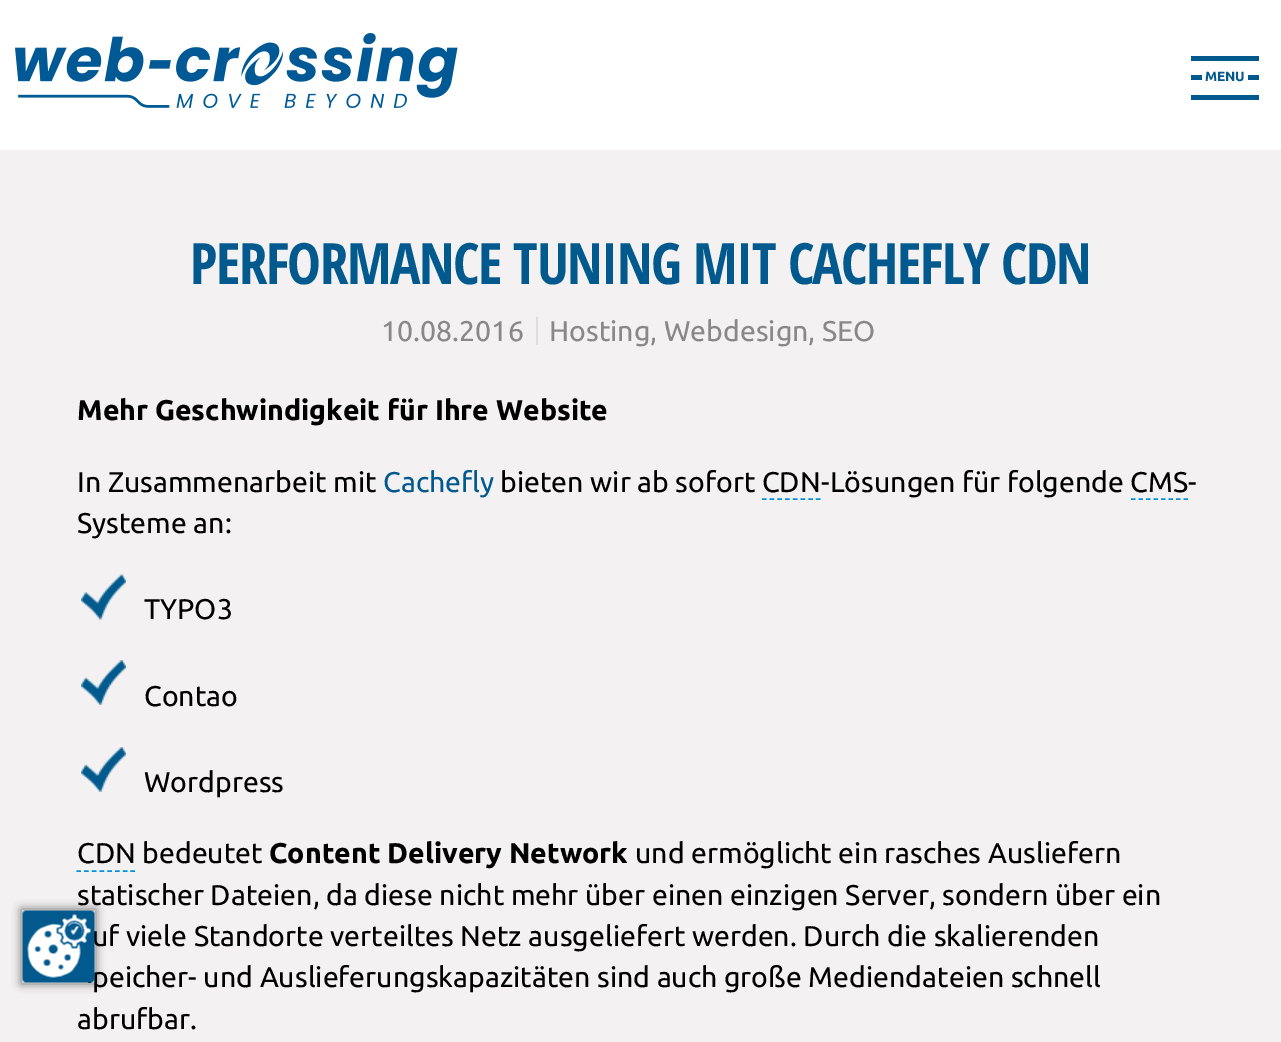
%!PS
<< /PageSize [1281 1042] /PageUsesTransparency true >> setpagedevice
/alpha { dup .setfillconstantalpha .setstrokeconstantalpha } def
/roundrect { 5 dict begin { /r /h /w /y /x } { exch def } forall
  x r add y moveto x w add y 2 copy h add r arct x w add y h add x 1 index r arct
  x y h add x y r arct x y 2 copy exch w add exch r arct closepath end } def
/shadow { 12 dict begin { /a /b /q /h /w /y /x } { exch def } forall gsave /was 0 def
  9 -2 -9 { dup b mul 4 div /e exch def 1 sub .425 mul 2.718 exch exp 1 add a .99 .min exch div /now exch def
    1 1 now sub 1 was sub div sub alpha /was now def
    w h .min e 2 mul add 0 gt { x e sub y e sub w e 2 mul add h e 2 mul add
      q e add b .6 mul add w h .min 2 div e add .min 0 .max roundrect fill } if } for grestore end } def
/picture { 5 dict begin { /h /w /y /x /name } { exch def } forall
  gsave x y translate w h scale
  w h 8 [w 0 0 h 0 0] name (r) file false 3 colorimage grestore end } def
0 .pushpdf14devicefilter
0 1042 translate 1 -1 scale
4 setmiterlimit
0.953 0.945 0.945 setrgbcolor
0 0 1281 1042 rectfill
0 setgray
21 909 75 75 0 4.5 0.5 shadow
/Ubuntu-Regular [28.5 0 0 -28.5 0 0] selectfont
77 905 moveto (statischer Dateien, da diese nicht mehr über einen einzigen Server, sondern über ein) show
92 946 moveto (uf viele Standorte verteiltes Netz ausgeliefert werden. Durch die skalierenden) show
92 987 moveto (peicher- und Auslieferungskapazitäten sind auch große Mediendateien schnell) show
(img1.rgb) 22 910 73 73 picture
1 setgray
0 0 1281 150 rectfill
(img2.rgb) 15 33 443 75 picture
0.004 0.349 0.553 setrgbcolor
1191 56 68 5 rectfill
1191 75 68 5 rectfill
1 setgray
1202 75 46 5 rectfill
/Ubuntu-Bold [13.5 0 0 -13.5 0 0] selectfont
0.004 0.349 0.553 setrgbcolor
1205 81 moveto (MENU) show
1191 95 68 5 rectfill
/OpenSansCondensed-Bold [57 0 0 -57 0 0] selectfont
190 284 moveto -1.5 0 (PERFORMANCE TUNING MIT CACHEFLY CDN) ashow
0.867 setgray
536 317 2 28 rectfill
/Ubuntu-Regular [28.5 0 0 -28.5 0 0] selectfont
0.533 setgray
381 341 moveto (10.08.2016) show
549 341 moveto (Hosting, Webdesign, SEO) show
/Ubuntu-Bold [28.5 0 0 -28.5 0 0] selectfont
0 setgray
77 420 moveto (Mehr Geschwindigkeit für Ihre Website) show
/Ubuntu-Regular [28.5 0 0 -28.5 0 0] selectfont
77 492 moveto (In Zusammenarbeit mit) show
0.004 0.349 0.553 setrgbcolor
383 492 moveto (Cachefly) show
0 setgray
500 492 moveto (bieten wir ab sofort CDN) show
821 492 moveto (-Lösungen für folgende CMS) show
1188 492 moveto (-) show
0 0.569 0.863 setrgbcolor
1.5 setlinewidth
[4.5 3.21] 0 setdash
newpath 762 499 moveto 820.5 499 lineto stroke
[4.5 3] 0 setdash
newpath 1131 499 moveto 1188 499 lineto stroke
0 setgray
77 533 moveto (Systeme an:) show
(img3.rgb) 81 574 45 46 picture
144 619 moveto (TYPO3) show
(img4.rgb) 81 660 45 45 picture
144 706 moveto (Contao) show
(img4.rgb) 81 747 45 45 picture
144 792 moveto (Wordpress) show
77 863 moveto (CDN) show
0 0.569 0.863 setrgbcolor
[4.5 3.21] 0 setdash
newpath 76.5 871 moveto 135 871 lineto stroke
0 setgray
142 863 moveto (bedeutet) show
/Ubuntu-Bold [28.5 0 0 -28.5 0 0] selectfont
269 863 moveto (Content Delivery Network) show
/Ubuntu-Regular [28.5 0 0 -28.5 0 0] selectfont
635 863 moveto (und ermöglicht ein rasches Ausliefern) show
77 1029 moveto (abrufbar.) show
.poppdf14devicefilter showpage
